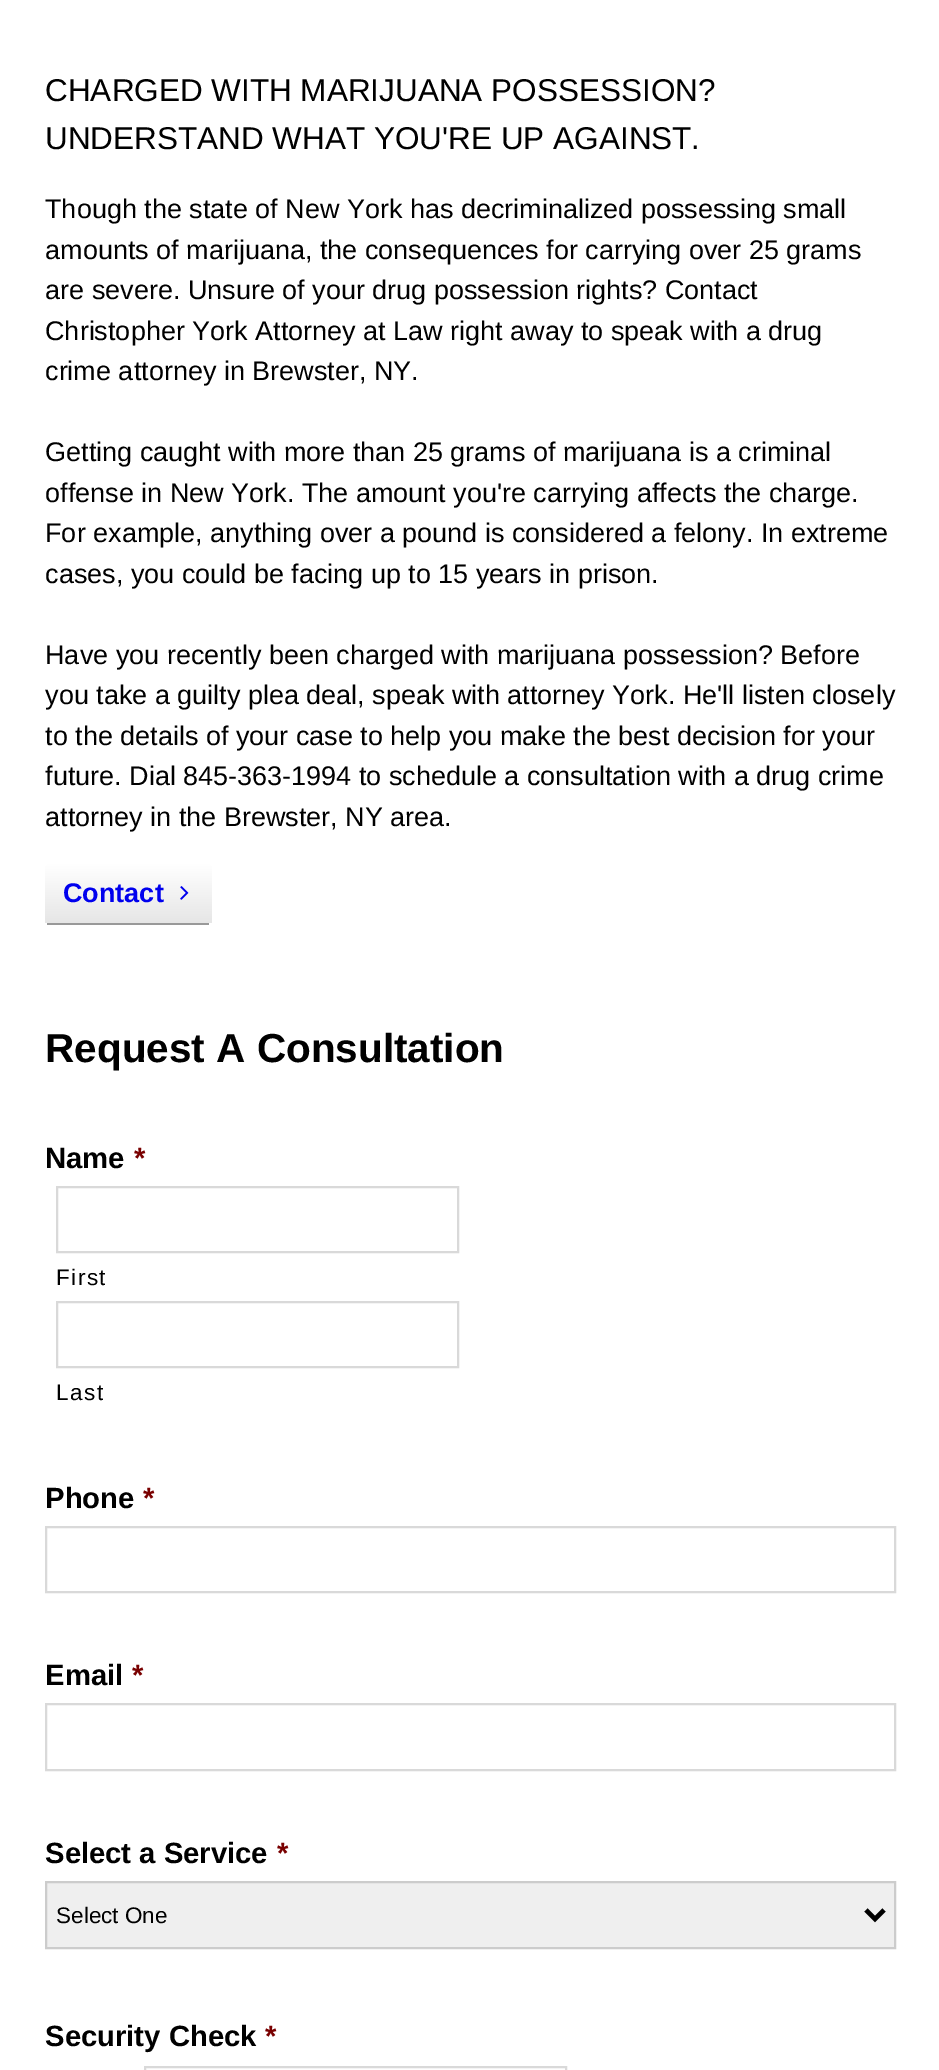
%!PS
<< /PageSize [939 2070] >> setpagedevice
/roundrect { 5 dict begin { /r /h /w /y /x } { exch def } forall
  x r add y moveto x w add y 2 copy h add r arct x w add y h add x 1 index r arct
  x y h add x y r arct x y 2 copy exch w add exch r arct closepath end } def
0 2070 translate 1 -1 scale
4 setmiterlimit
1 setgray
0 0 939 2070 rectfill
/LiberationSans-Regular [31.5 0 0 -31.5 0 0] selectfont
0 setgray
45 101 moveto (CHARGED WITH MARIJUANA POSSESSION?) show
45 149 moveto (UNDERSTAND WHAT YOU'RE UP AGAINST.) show
/LiberationSans-Regular [27 0 0 -27 0 0] selectfont
45 218 moveto (Though the state of New York has decriminalized possessing small) show
45 259 moveto (amounts of marijuana, the consequences for carrying over 25 grams) show
45 299 moveto (are severe. Unsure of your drug possession rights? Contact) show
45 340 moveto (Christopher York Attorney at Law right away to speak with a drug) show
45 380 moveto (crime attorney in Brewster, NY.) show
45 461 moveto (Getting caught with more than 25 grams of marijuana is a criminal) show
45 502 moveto (offense in New York. The amount you're carrying affects the charge.) show
45 542 moveto (For example, anything over a pound is considered a felony. In extreme) show
45 583 moveto (cases, you could be facing up to 15 years in prison.) show
45 664 moveto (Have you recently been charged with marijuana possession? Before) show
45 704 moveto (you take a guilty plea deal, speak with attorney York. He'll listen closely) show
45 745 moveto (to the details of your case to help you make the best decision for your) show
45 785 moveto (future. Dial 845-363-1994 to schedule a consultation with a drug crime) show
45 826 moveto (attorney in the Brewster, NY area.) show
gsave
45 864 167 61 5 roundrect clip newpath
gsave newpath 50 864 moveto 207 864 lineto 210 864 212 866 212 869 curveto 212 923 lineto 45 923 lineto 45 869 lineto 45 866 47 864 50 864 curveto closepath clip newpath
<< /ShadingType 2 /ColorSpace /DeviceRGB /Coords [128 864 128 923] /Extend [true true] /Function << /FunctionType 2 /Domain [0 1] /C0 [1 1 1] /C1 [0.902 0.902 0.902] /N 1 >> >> shfill grestore
grestore
0.6 setgray
47 923 162 2 rectfill
/LiberationSans-Bold [27 0 0 -27 0 0] selectfont
0 0 0.933 setrgbcolor
63 902 moveto (Contact) show
/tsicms-Bold [20 0 0 -20 0 0] selectfont
174 902 moveto (>) show
/LiberationSans-Bold [40.5 0 0 -40.5 0 0] selectfont
0 setgray
45 1062 moveto (Request A Consultation) show
/LiberationSans-Bold [29.25 0 0 -29.25 0 0] selectfont
45 1168 moveto (Name) show
0.475 0 0 setrgbcolor
134 1168 moveto (*) show
0.851 setgray
2 setlinewidth
57 1187 401 65 rectstroke
/LiberationSans-Regular [22.5 0 0 -22.5 0 0] selectfont
0 setgray
56 1285 moveto 1.5 0 (First) ashow
0.851 setgray
57 1302 401 65 rectstroke
0 setgray
56 1400 moveto 1.5 0 (Last) ashow
/LiberationSans-Bold [29.25 0 0 -29.25 0 0] selectfont
45 1508 moveto (Phone) show
0.475 0 0 setrgbcolor
143 1508 moveto (*) show
0.851 setgray
46 1527 849 65 rectstroke
0 setgray
45 1685 moveto (Email) show
0.475 0 0 setrgbcolor
132 1685 moveto (*) show
0.851 setgray
46 1704 849 66 rectstroke
0 setgray
45 1863 moveto (Select a Service) show
0.475 0 0 setrgbcolor
277 1863 moveto (*) show
0.937 setgray
newpath 46 1882 moveto 895 1882 lineto 895 1948 lineto 46 1948 lineto closepath gsave fill grestore
0.8 setgray
stroke
0 setgray
4.5 setlinewidth
newpath 866 1910 moveto 875 1919 lineto 884 1910 lineto stroke
/LiberationSans-Regular [22.5 0 0 -22.5 0 0] selectfont
56 1923 moveto (Select One) show
/LiberationSans-Bold [29.25 0 0 -29.25 0 0] selectfont
45 2046 moveto (Security Check) show
0.475 0 0 setrgbcolor
265 2046 moveto (*) show
0.851 setgray
2 setlinewidth
145 2067 421 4 rectstroke
showpage
